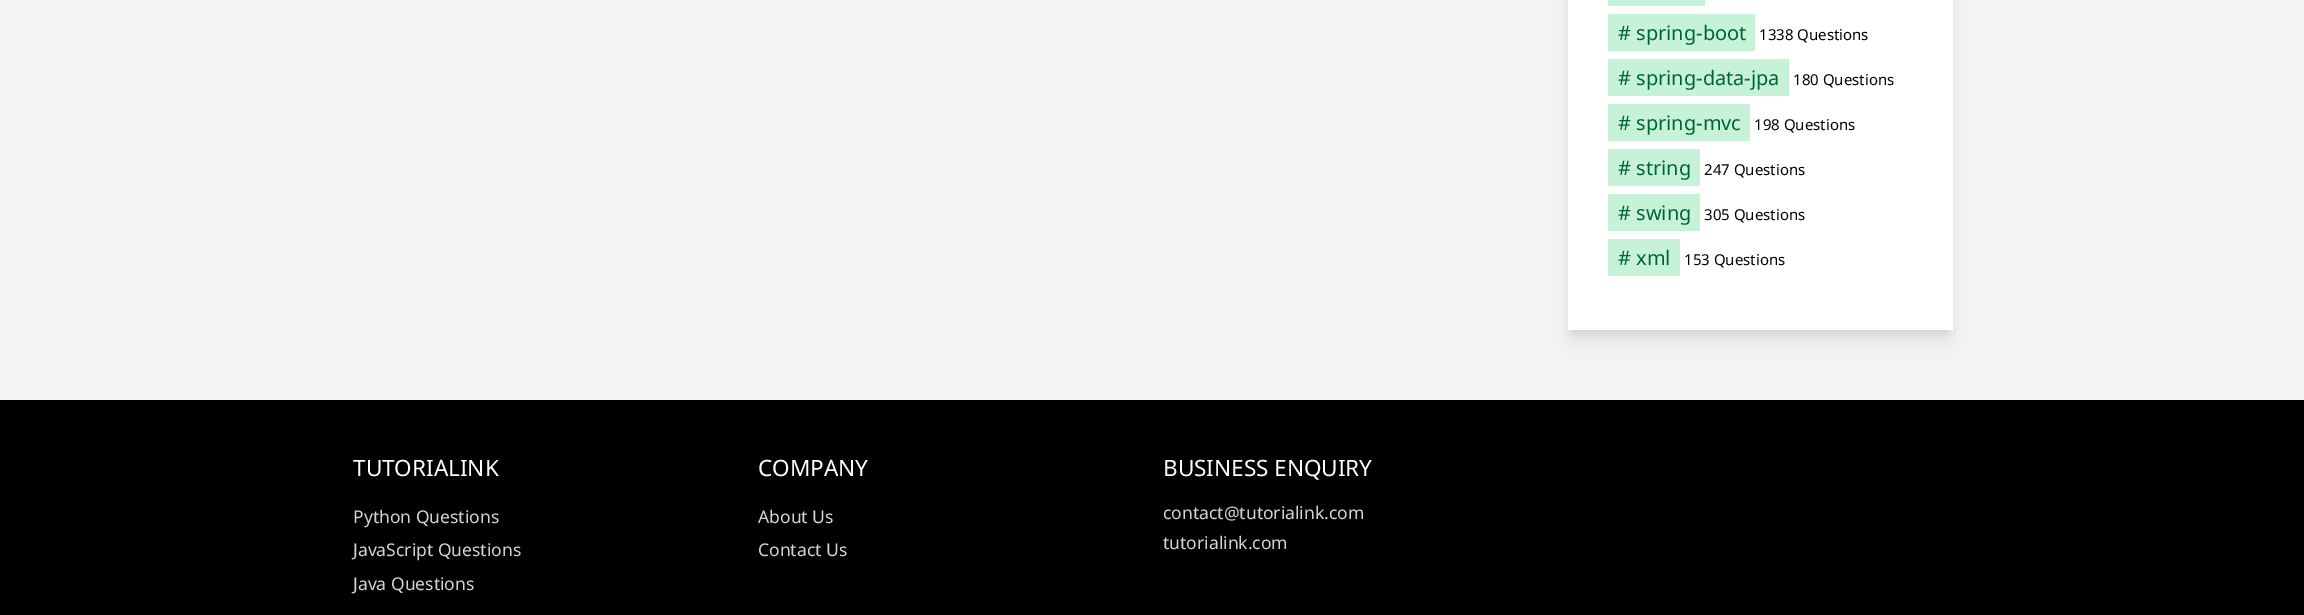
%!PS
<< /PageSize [2304 615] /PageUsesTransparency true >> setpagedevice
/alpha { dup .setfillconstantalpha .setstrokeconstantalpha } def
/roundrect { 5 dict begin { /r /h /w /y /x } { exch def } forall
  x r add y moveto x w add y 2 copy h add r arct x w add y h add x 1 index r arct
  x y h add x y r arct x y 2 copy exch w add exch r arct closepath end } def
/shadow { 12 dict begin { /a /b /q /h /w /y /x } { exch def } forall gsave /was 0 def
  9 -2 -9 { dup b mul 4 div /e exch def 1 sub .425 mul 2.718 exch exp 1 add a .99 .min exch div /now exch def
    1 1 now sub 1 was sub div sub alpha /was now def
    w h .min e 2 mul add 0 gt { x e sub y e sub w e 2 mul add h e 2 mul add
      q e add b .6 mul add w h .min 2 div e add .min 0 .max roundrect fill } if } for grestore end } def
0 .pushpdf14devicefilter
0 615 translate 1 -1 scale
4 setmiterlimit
0.953 0.957 0.965 setrgbcolor
0 0 2304 615 rectfill
0 setgray
1573 -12 375 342 0 4 0.1 shadow
1571 -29 378 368 0 9.5 0.1 shadow
1 setgray
1568 0 385 330 rectfill
0.776 0.953 0.847 setrgbcolor
1608 0 97 6 rectfill
1608 14 147 37 rectfill
/NotoSans-Regular [20 0 0 -20 0 0] selectfont
0 0.388 0.212 setrgbcolor
1618 40 moveto (# spring-boot) show
/NotoSans-Regular [15 0 0 -15 0 0] selectfont
0 setgray
1759 40 moveto (1338 Questions) show
0.776 0.953 0.847 setrgbcolor
1608 59 181 37 rectfill
/NotoSans-Regular [20 0 0 -20 0 0] selectfont
0 0.388 0.212 setrgbcolor
1618 85 moveto (# spring-data-jpa) show
/NotoSans-Regular [15 0 0 -15 0 0] selectfont
0 setgray
1793 85 moveto (180 Questions) show
0.776 0.953 0.847 setrgbcolor
1608 104 142 37 rectfill
/NotoSans-Regular [20 0 0 -20 0 0] selectfont
0 0.388 0.212 setrgbcolor
1618 130 moveto (# spring-mvc) show
/NotoSans-Regular [15 0 0 -15 0 0] selectfont
0 setgray
1754 130 moveto (198 Questions) show
0.776 0.953 0.847 setrgbcolor
1608 149 92 37 rectfill
/NotoSans-Regular [20 0 0 -20 0 0] selectfont
0 0.388 0.212 setrgbcolor
1618 175 moveto (# string) show
/NotoSans-Regular [15 0 0 -15 0 0] selectfont
0 setgray
1704 175 moveto (247 Questions) show
0.776 0.953 0.847 setrgbcolor
1608 194 92 37 rectfill
/NotoSans-Regular [20 0 0 -20 0 0] selectfont
0 0.388 0.212 setrgbcolor
1618 220 moveto (# swing) show
/NotoSans-Regular [15 0 0 -15 0 0] selectfont
0 setgray
1704 220 moveto (305 Questions) show
0.776 0.953 0.847 setrgbcolor
1608 239 72 37 rectfill
/NotoSans-Regular [20 0 0 -20 0 0] selectfont
0 0.388 0.212 setrgbcolor
1618 265 moveto (# xml) show
/NotoSans-Regular [15 0 0 -15 0 0] selectfont
0 setgray
1684 265 moveto (153 Questions) show
0 400 2304 215 rectfill
/NotoSans-Regular [22.5 0 0 -22.5 0 0] selectfont
1 setgray
353 476 moveto (TUTORIALINK) show
/NotoSans-Regular [17.5 0 0 -17.5 0 0] selectfont
0.82 0.835 0.859 setrgbcolor
353 523 moveto (Python Questions) show
353 556 moveto (JavaScript Questions) show
353 590 moveto (Java Questions) show
/NotoSans-Regular [22.5 0 0 -22.5 0 0] selectfont
1 setgray
758 476 moveto (COMPANY) show
/NotoSans-Regular [17.5 0 0 -17.5 0 0] selectfont
0.82 0.835 0.859 setrgbcolor
758 523 moveto (About Us) show
758 556 moveto (Contact Us) show
/NotoSans-Regular [22.5 0 0 -22.5 0 0] selectfont
1 setgray
1163 476 moveto (BUSINESS ENQUIRY) show
/NotoSans-Regular [17.5 0 0 -17.5 0 0] selectfont
0.82 0.835 0.859 setrgbcolor
1163 519 moveto (contact@tutorialink.com) show
1163 549 moveto (tutorialink.com) show
.poppdf14devicefilter showpage
